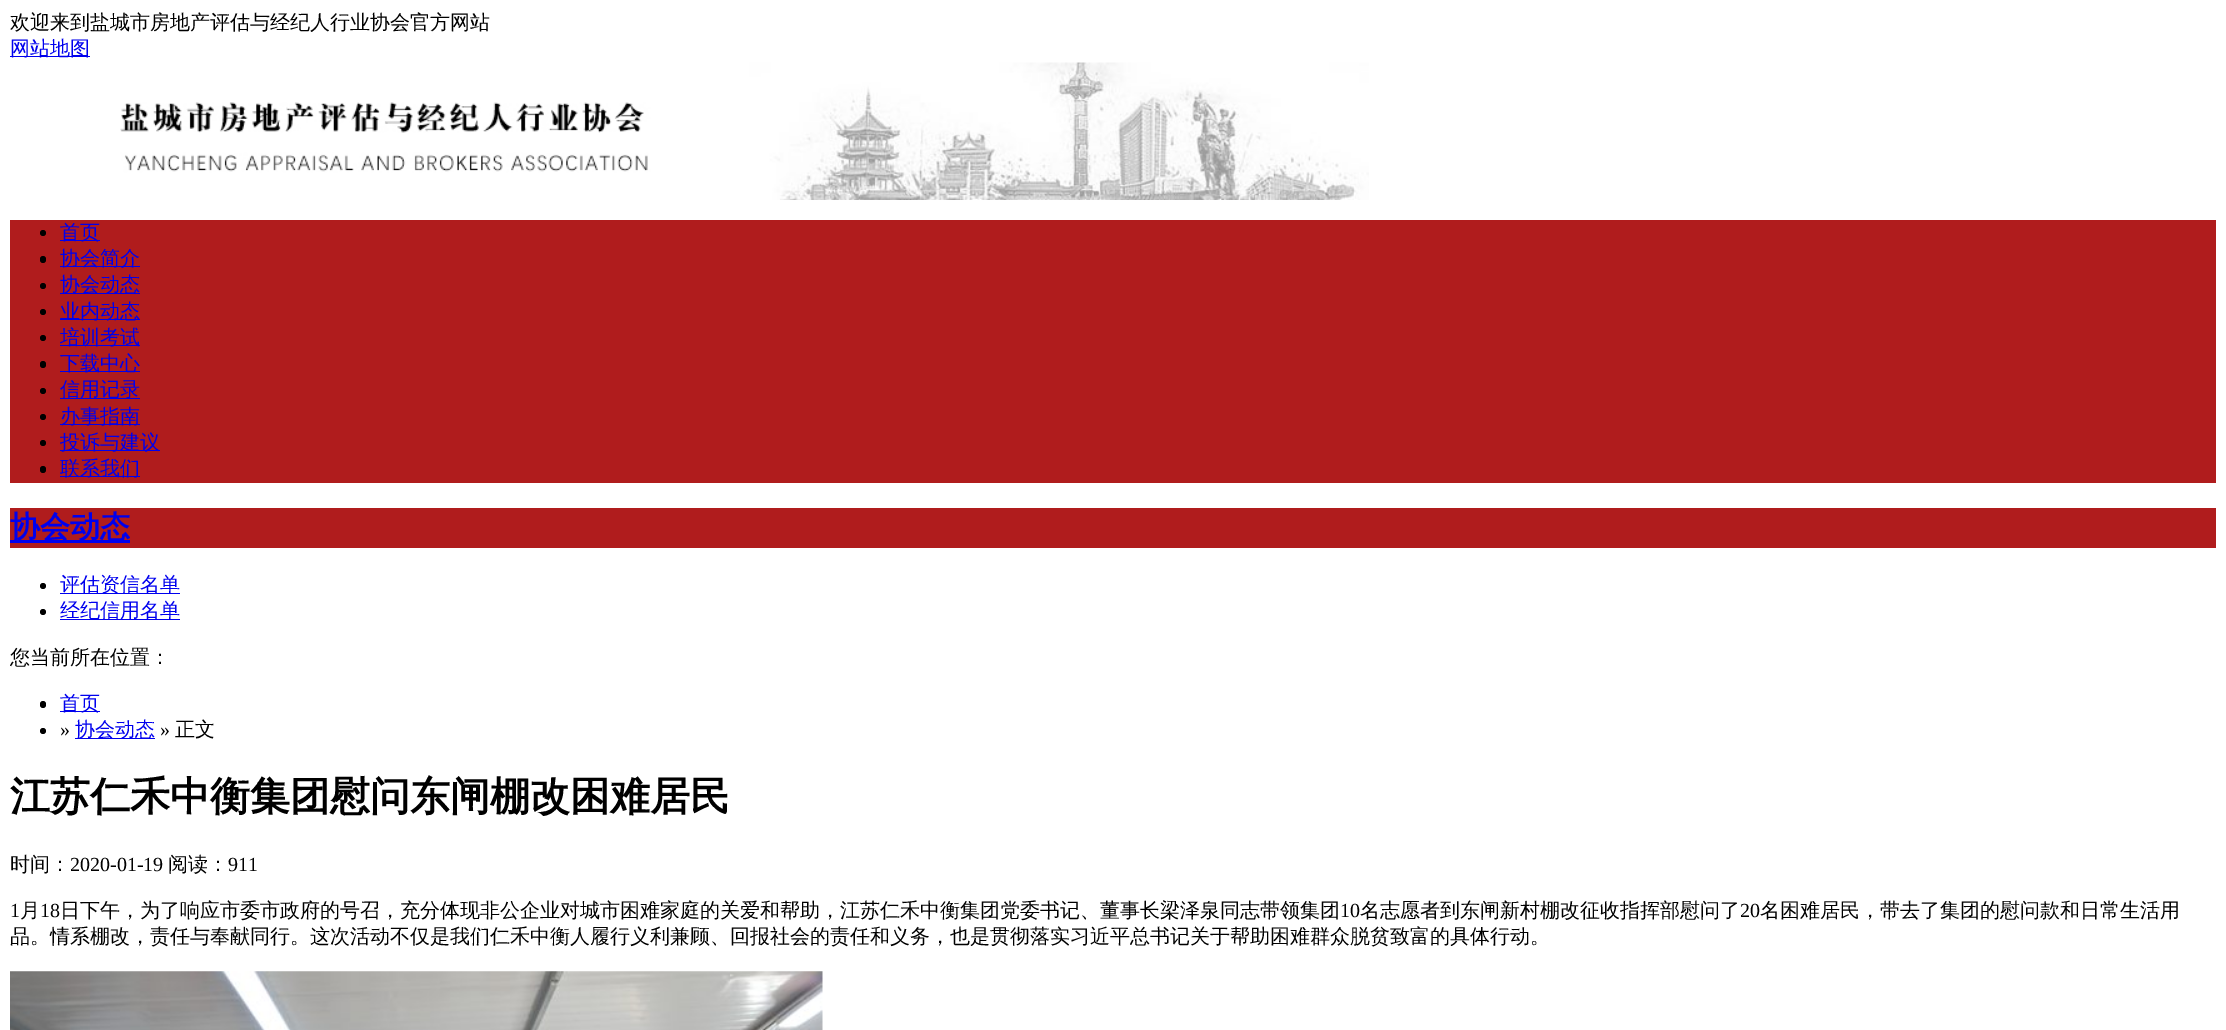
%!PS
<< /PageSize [2226 1030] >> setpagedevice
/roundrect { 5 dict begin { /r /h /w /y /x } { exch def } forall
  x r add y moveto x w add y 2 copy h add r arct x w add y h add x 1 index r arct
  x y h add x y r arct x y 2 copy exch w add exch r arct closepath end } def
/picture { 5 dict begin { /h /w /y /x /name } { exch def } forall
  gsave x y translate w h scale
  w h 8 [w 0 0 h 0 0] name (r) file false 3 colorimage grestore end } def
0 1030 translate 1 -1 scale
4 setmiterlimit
1 setgray
0 0 2226 1030 rectfill
/WenQuanYiZenHei-Medium [20 0 0 -20 0 0] selectfont
0 setgray
10 29 moveto (欢迎来到盐城市房地产评估与经纪人行业协会官方网站) show
0 0 0.933 setrgbcolor
10 56 80 1 rectfill
10 55 moveto (网站地图) show
(img1.rgb) 120 62 1249 138 picture
0.69 0.11 0.114 setrgbcolor
10 220 2206 263 rectfill
0 setgray
newpath 43 233 3 0 360 arc closepath fill
0 0 0.933 setrgbcolor
60 240 40 1 rectfill
60 239 moveto (首页) show
0 setgray
40 256 6 7 3 roundrect fill
0 0 0.933 setrgbcolor
60 266 80 1 rectfill
60 265 moveto (协会简介) show
0 setgray
newpath 43 286 3 0 360 arc closepath fill
0 0 0.933 setrgbcolor
60 293 80 1 rectfill
60 291 moveto (协会动态) show
0 setgray
newpath 43 312 3 0 360 arc closepath fill
0 0 0.933 setrgbcolor
60 319 80 1 rectfill
60 318 moveto (业内动态) show
0 setgray
newpath 43 338 3 0 360 arc closepath fill
0 0 0.933 setrgbcolor
60 345 80 1 rectfill
60 344 moveto (培训考试) show
0 setgray
40 361 6 7 3 roundrect fill
0 0 0.933 setrgbcolor
60 371 80 1 rectfill
60 370 moveto (下载中心) show
0 setgray
newpath 43 391 3 0 360 arc closepath fill
0 0 0.933 setrgbcolor
60 398 80 1 rectfill
60 396 moveto (信用记录) show
0 setgray
newpath 43 417 3 0 360 arc closepath fill
0 0 0.933 setrgbcolor
60 424 80 1 rectfill
60 423 moveto (办事指南) show
0 setgray
newpath 43 443 3 0 360 arc closepath fill
0 0 0.933 setrgbcolor
60 450 100 1 rectfill
60 449 moveto (投诉与建议) show
0 setgray
40 466 6 7 3 roundrect fill
0 0 0.933 setrgbcolor
60 476 80 1 rectfill
60 475 moveto (联系我们) show
0.69 0.11 0.114 setrgbcolor
10 508 2206 40 rectfill
0 0 0.933 setrgbcolor
10 540 120 3 rectfill
/WenQuanYiZenHei-Bold [30 0 0 -30 0 0] selectfont
10 537 moveto (协会动态) show
0 setgray
newpath 43 586 3 0 360 arc closepath fill
0 0 0.933 setrgbcolor
60 593 120 1 rectfill
/WenQuanYiZenHei-Medium [20 0 0 -20 0 0] selectfont
60 591 moveto (评估资信名单) show
0 setgray
newpath 43 612 3 0 360 arc closepath fill
0 0 0.933 setrgbcolor
60 619 120 1 rectfill
60 617 moveto (经纪信用名单) show
0 setgray
10 664 moveto (您当前所在位置：) show
40 701 6 7 3 roundrect fill
0 0 0.933 setrgbcolor
60 711 40 1 rectfill
60 710 moveto (首页) show
0 setgray
newpath 43 731 3 0 360 arc closepath fill
/LiberationSerif-Regular [20 0 0 -20 0 0] selectfont
60 736 moveto (») show
0 0 0.933 setrgbcolor
75 738 80 1 rectfill
/WenQuanYiZenHei-Medium [20 0 0 -20 0 0] selectfont
75 736 moveto (协会动态) show
/LiberationSerif-Regular [20 0 0 -20 0 0] selectfont
0 setgray
160 736 moveto (») show
/WenQuanYiZenHei-Medium [20 0 0 -20 0 0] selectfont
175 736 moveto (正文) show
/WenQuanYiZenHei-Bold [40 0 0 -40 0 0] selectfont
10 810 moveto (江苏仁禾中衡集团慰问东闸棚改困难居民) show
/WenQuanYiZenHei-Medium [20 0 0 -20 0 0] selectfont
10 871 moveto (时间：) show
/LiberationSerif-Regular [20 0 0 -20 0 0] selectfont
70 871 moveto (2020-01-19) show
/WenQuanYiZenHei-Medium [20 0 0 -20 0 0] selectfont
168 871 moveto (阅读：) show
/LiberationSerif-Regular [20 0 0 -20 0 0] selectfont
228 871 moveto (911) show
10 917 moveto (1) show
/WenQuanYiZenHei-Medium [20 0 0 -20 0 0] selectfont
20 917 moveto (月) show
/LiberationSerif-Regular [20 0 0 -20 0 0] selectfont
40 917 moveto (18) show
/WenQuanYiZenHei-Medium [20 0 0 -20 0 0] selectfont
60 917 moveto (日下午，为了响应市委市政府的号召，充分体现非公企业对城市困难家庭的关爱和帮助，江苏仁禾中衡集团党委书记、董事长梁泽泉同志带领集团) show
/LiberationSerif-Regular [20 0 0 -20 0 0] selectfont
1340 917 moveto (10) show
/WenQuanYiZenHei-Medium [20 0 0 -20 0 0] selectfont
1360 917 moveto (名志愿者到东闸新村棚改征收指挥部慰问了) show
/LiberationSerif-Regular [20 0 0 -20 0 0] selectfont
1740 917 moveto (20) show
/WenQuanYiZenHei-Medium [20 0 0 -20 0 0] selectfont
1760 917 moveto (名困难居民，带去了集团的慰问款和日常生活用) show
10 943 moveto (品。情系棚改，责任与奉献同行。这次活动不仅是我们仁禾中衡人履行义利兼顾、回报社会的责任和义务，也是贯彻落实习近平总书记关于帮助困难群众脱贫致富的具体行动。) show
(img2.rgb) 10 971 813 59 picture
showpage
